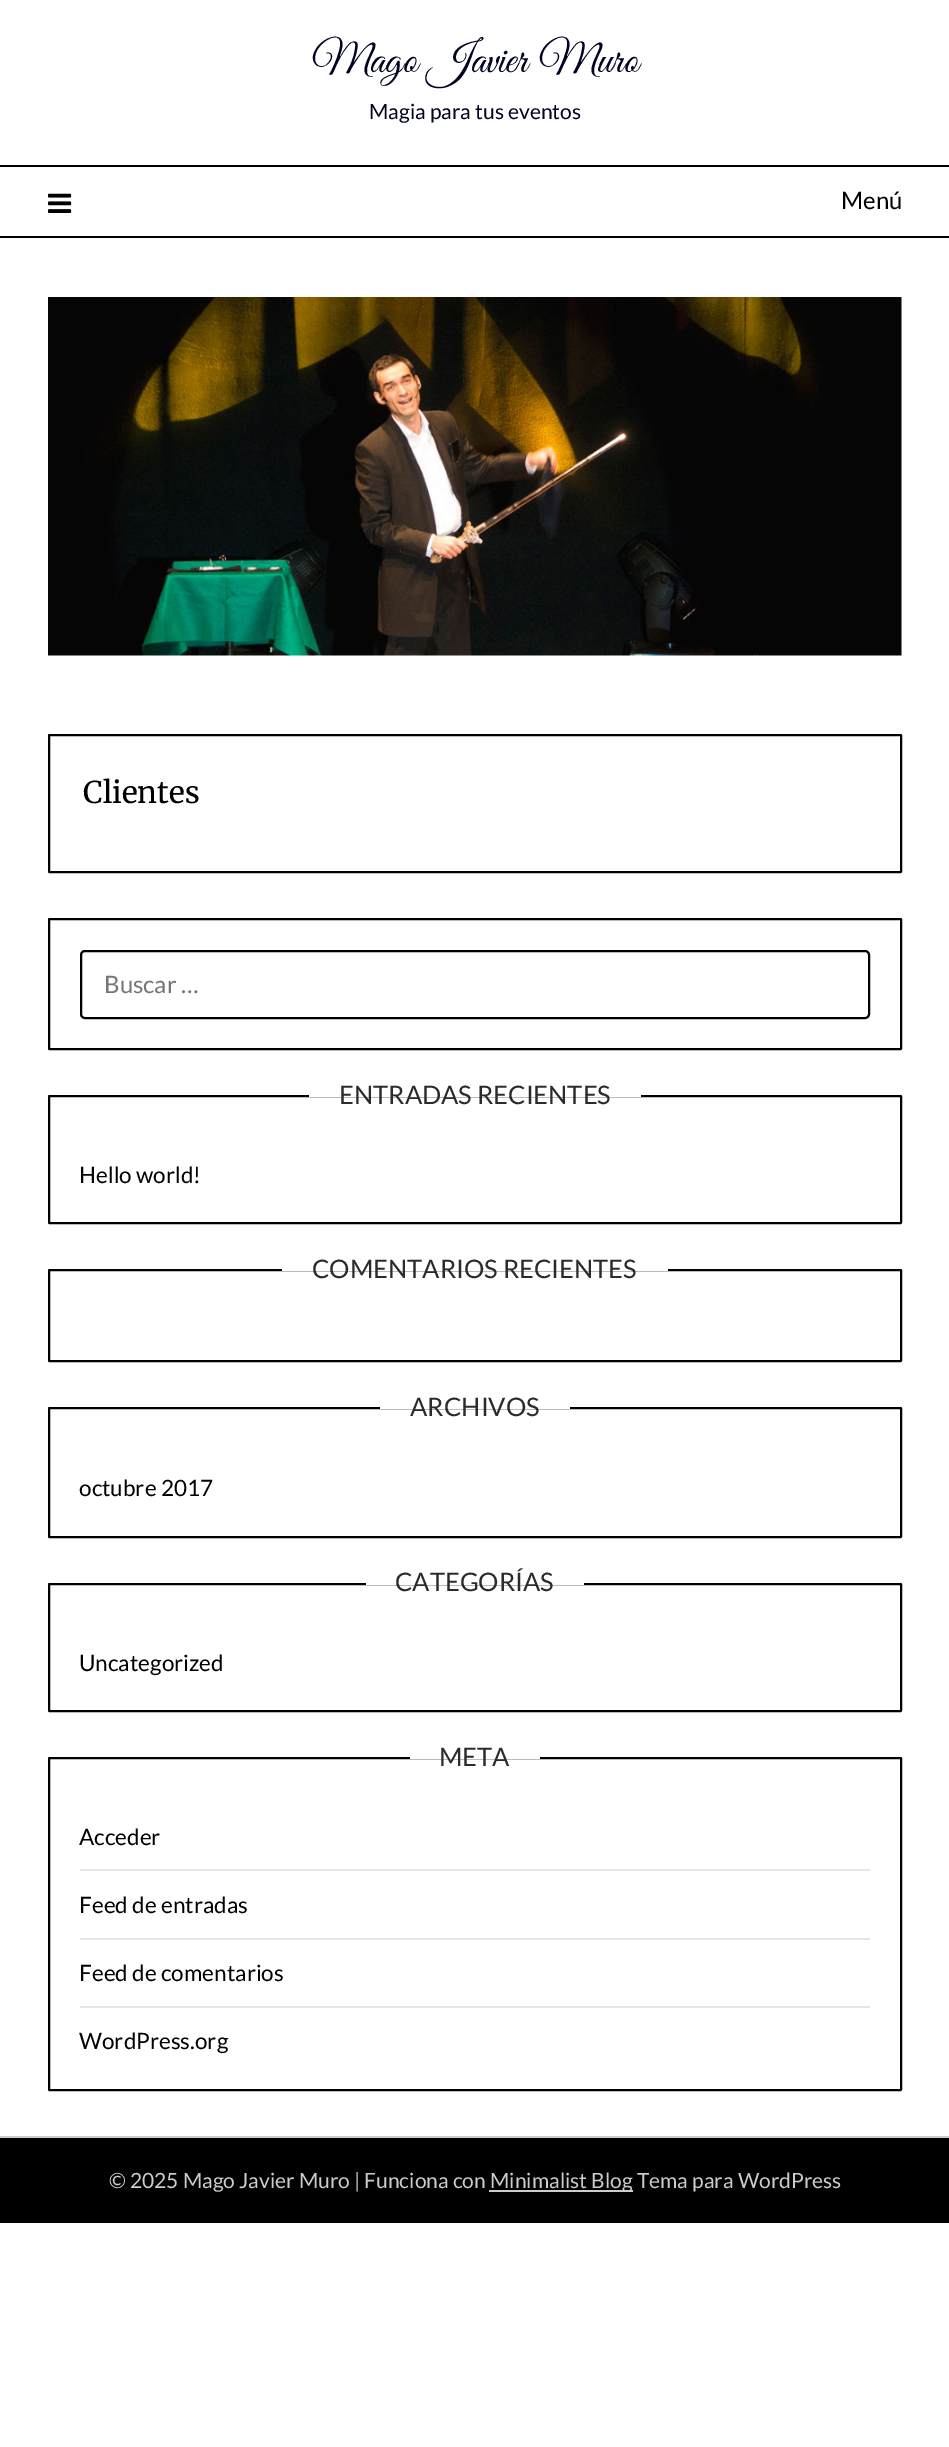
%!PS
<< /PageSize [949 2447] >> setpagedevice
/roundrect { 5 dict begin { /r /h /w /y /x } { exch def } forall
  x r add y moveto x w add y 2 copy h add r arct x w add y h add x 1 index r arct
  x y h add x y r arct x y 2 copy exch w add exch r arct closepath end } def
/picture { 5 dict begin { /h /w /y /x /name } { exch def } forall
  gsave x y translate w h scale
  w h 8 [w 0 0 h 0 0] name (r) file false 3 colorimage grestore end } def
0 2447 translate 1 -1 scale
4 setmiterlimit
1 setgray
0 0 949 2447 rectfill
/GreatVibes-Regular [43.5 0 0 -43.5 0 0] selectfont
0 0.008 0.133 setrgbcolor
312 72 moveto (Mago Javier Muro) show
/Lato-Regular [21 0 0 -21 0 0] selectfont
369 119 moveto (Magia para tus eventos) show
0 setgray
0 165 949 2 rectfill
0 236 949 2 rectfill
(img1.rgb) 48 193 24 20 picture
/Lato-Regular [24 0 0 -24 0 0] selectfont
841 209 moveto (Menú) show
(img2.rgb) 48 297 854 359 picture
2 setlinewidth
49 735 852 137 0.5 roundrect stroke
/Merriweather-Regular [30 0 0 -30 0 0] selectfont
83 803 moveto (Clientes) show
49 919 852 130 0.5 roundrect stroke
81 951 788 67 4 roundrect stroke
/Lato-Regular [24 0 0 -24 0 0] selectfont
0.459 setgray
104 993 moveto (Buscar …) show
0 setgray
49 1096 852 127 0.5 roundrect stroke
1 setgray
309 1095 332 2 rectfill
/Lato-Regular [25.5 0 0 -25.5 0 0] selectfont
0.169 setgray
339 1104 moveto (ENTRADAS RECIENTES) show
/Lato-Regular [22.5 0 0 -22.5 0 0] selectfont
0 setgray
79 1183 moveto (Hello world!) show
49 1270 852 91 0.5 roundrect stroke
1 setgray
282 1269 386 2 rectfill
/Lato-Regular [25.5 0 0 -25.5 0 0] selectfont
0.169 setgray
312 1278 moveto (COMENTARIOS RECIENTES) show
0 setgray
49 1408 852 129 0.5 roundrect stroke
1 setgray
380 1407 190 2 rectfill
0.169 setgray
410 1416 moveto (ARCHIVOS) show
/Lato-Regular [22.5 0 0 -22.5 0 0] selectfont
0 setgray
79 1496 moveto (octubre 2017) show
49 1584 852 127 0.5 roundrect stroke
1 setgray
366 1583 218 2 rectfill
/Lato-Regular [25.5 0 0 -25.5 0 0] selectfont
0.169 setgray
395 1591 moveto (CATEGORÍAS) show
/Lato-Regular [22.5 0 0 -22.5 0 0] selectfont
0 setgray
79 1671 moveto (Uncategorized) show
49 1758 852 332 0.5 roundrect stroke
1 setgray
410 1757 130 2 rectfill
/Lato-Regular [25.5 0 0 -25.5 0 0] selectfont
0.169 setgray
439 1766 moveto (META) show
0.902 setgray
80 1869 790 2 rectfill
/Lato-Regular [22.5 0 0 -22.5 0 0] selectfont
0 setgray
79 1845 moveto (Acceder) show
0.902 setgray
80 1938 790 2 rectfill
0 setgray
79 1913 moveto (Feed de entradas) show
0.902 setgray
80 2006 790 2 rectfill
0 setgray
79 1981 moveto (Feed de comentarios) show
79 2049 moveto (WordPress.org) show
0 2138 949 85 rectfill
0.8 setgray
0 2136 949 2 rectfill
/Lato-Regular [21 0 0 -21 0 0] selectfont
109 2188 moveto (© 2025 Mago Javier Muro | Funciona con) show
489 2190 144 2 rectfill
490 2188 moveto (Minimalist Blog Tema para WordPress) show
showpage
